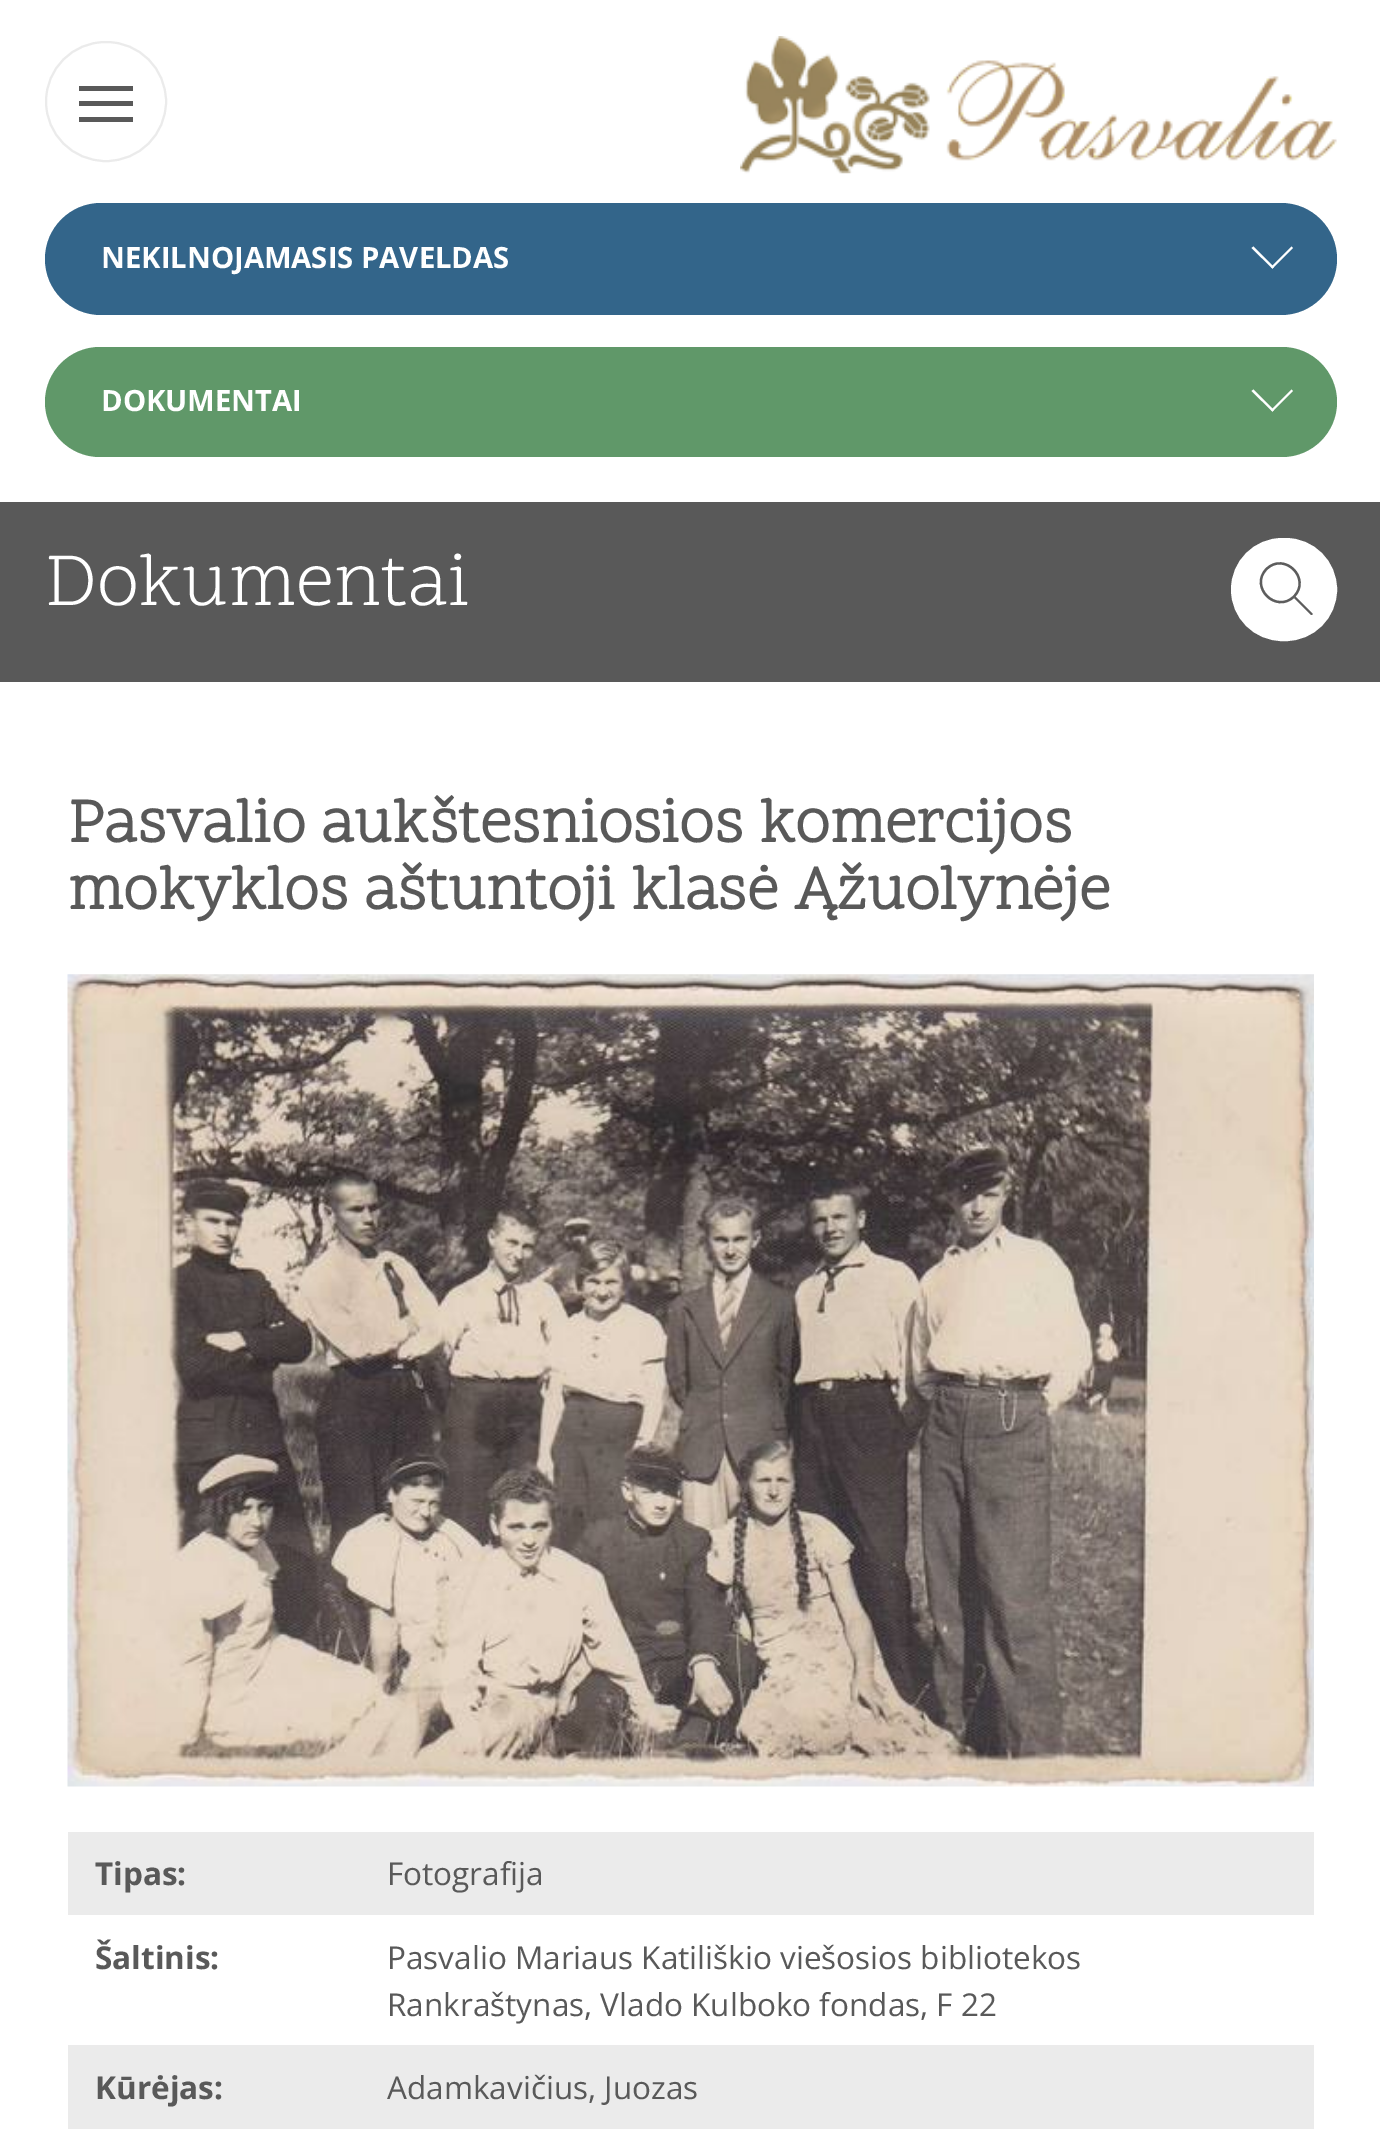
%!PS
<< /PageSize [1380 2154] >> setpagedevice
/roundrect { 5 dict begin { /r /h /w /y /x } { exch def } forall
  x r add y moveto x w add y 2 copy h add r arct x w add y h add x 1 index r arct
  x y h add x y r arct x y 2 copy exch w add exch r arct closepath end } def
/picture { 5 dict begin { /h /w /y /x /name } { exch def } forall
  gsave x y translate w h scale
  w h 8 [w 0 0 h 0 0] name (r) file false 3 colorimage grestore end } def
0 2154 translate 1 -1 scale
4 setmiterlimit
1 setgray
0 0 1380 2154 rectfill
0.922 setgray
2 setlinewidth
46 42 120 119 59.5 roundrect stroke
0.349 setgray
79 86 54 5 rectfill
79 101 54 5 rectfill
79 117 54 5 rectfill
(img1.rgb) 740 36 597 138 picture
0.2 0.396 0.541 setrgbcolor
45 203 1292 112 56 roundrect fill
/OpenSans-Bold [29.25 0 0 -29.25 0 0] selectfont
1 setgray
101 268 moveto (NEKILNOJAMASIS PAVELDAS) show
newpath 1291.5 246.5 moveto 1293 248 lineto 1272.5 268.5 lineto 1271 267 lineto closepath fill
newpath 1253.5 246.5 moveto 1274 267 lineto 1272.5 268.5 lineto 1251.5 248 lineto closepath fill
0.376 0.596 0.412 setrgbcolor
45 347 1292 110 55 roundrect fill
1 setgray
101 411 moveto (DOKUMENTAI) show
newpath 1291.5 389.5 moveto 1293 391 lineto 1272.5 411.5 lineto 1271 410 lineto closepath fill
newpath 1253.5 389.5 moveto 1274 410 lineto 1272.5 411.5 lineto 1251.5 391 lineto closepath fill
0.349 setgray
0 502 1380 180 rectfill
/ScopeOne-Regular [76.5 0 0 -76.5 0 0] selectfont
1 setgray
45 605 moveto (Dokumentai) show
1232 539 104 101 50.5 roundrect gsave fill grestore
stroke
0.365 setgray
2.3 setlinewidth
newpath 1266.5 569 moveto 1284.5 551.5 1311.5 578.5 1294 596.5 curveto 1276 614 1249 587 1266.5 569 curveto closepath stroke
newpath 1294 598 moveto 1295.5 596.5 lineto 1312.5 613.5 lineto 1313 614.5 1311.5 615.5 1310.5 614.5 curveto closepath fill
/ScopeOne-Bold [63 0 0 -63 0 0] selectfont
0.349 setgray
68 842 moveto (Pasvalio aukštesniosios komercijos) show
68 909 moveto (mokyklos aštuntoji klasė Ąžuolynėje) show
(img2.rgb) 67 974 1247 813 picture
0.922 setgray
68 1832 1246 83 rectfill
/OpenSans-Bold [31.5 0 0 -31.5 0 0] selectfont
0.349 setgray
95 1885 moveto (Tipas:) show
/OpenSans-Regular [31.5 0 0 -31.5 0 0] selectfont
387 1885 moveto (Fotografija) show
/OpenSans-Bold [31.5 0 0 -31.5 0 0] selectfont
95 1969 moveto (Šaltinis:) show
/OpenSans-Regular [31.5 0 0 -31.5 0 0] selectfont
387 1969 moveto (Pasvalio Mariaus Katiliškio viešosios bibliotekos) show
387 2016 moveto (Rankraštynas, Vlado Kulboko fondas, F 22) show
0.922 setgray
68 2045 1246 84 rectfill
/OpenSans-Bold [31.5 0 0 -31.5 0 0] selectfont
0.349 setgray
95 2099 moveto (Kūrėjas:) show
/OpenSans-Regular [31.5 0 0 -31.5 0 0] selectfont
387 2099 moveto (Adamkavičius, Juozas) show
showpage
